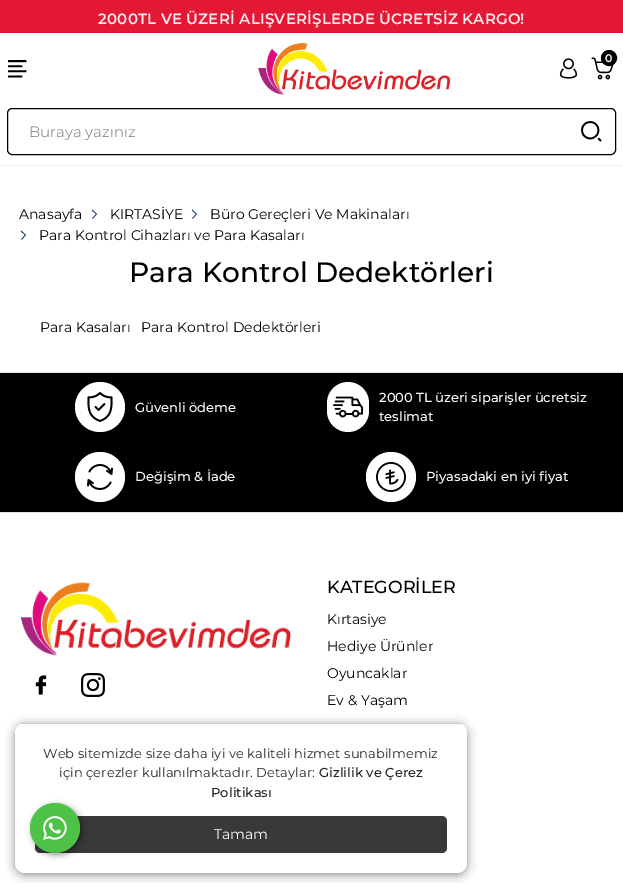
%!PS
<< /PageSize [623 883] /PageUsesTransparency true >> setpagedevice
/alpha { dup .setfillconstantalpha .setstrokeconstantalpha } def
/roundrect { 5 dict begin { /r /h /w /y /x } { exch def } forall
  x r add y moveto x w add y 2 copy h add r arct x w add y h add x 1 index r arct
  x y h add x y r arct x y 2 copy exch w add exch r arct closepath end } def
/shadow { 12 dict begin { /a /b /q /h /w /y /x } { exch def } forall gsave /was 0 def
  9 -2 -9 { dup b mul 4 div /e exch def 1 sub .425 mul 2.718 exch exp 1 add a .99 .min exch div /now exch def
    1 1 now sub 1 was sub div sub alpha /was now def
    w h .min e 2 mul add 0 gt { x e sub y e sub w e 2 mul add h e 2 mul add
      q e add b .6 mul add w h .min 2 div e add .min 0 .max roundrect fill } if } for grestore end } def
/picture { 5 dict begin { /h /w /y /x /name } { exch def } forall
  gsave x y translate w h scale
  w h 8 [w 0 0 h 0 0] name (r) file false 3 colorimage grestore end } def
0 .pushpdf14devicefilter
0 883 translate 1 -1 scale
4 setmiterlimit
1 setgray
0 0 623 883 rectfill
0.886 0.094 0.204 setrgbcolor
0 0 623 33 rectfill
/Montserrat-SemiBold [15 0 0 -15 0 0] selectfont
0.988 0.91 0.922 setrgbcolor
98 24 moveto 0.2 0 (2000TL VE ÜZERİ ALIŞVERİŞLERDE ÜCRETSİZ KARGO!) ashow
0.933 setgray
0 165 623 1 rectfill
(img1.rgb) 258 43 193 52 picture
(img2.rgb) 559 58 19 21 picture
(img3.rgb) 591 57 23 23 picture
0 setgray
newpath 609 58 7.5 0 360 arc closepath gsave fill grestore
stroke
/Montserrat-SemiBold [11 0 0 -11 0 0] selectfont
1 setgray
605 62 moveto (0) show
(img4.rgb) 8 60 19 18 picture
0 setgray
7.5 108.5 608 46 4.5 roundrect stroke
/Montserrat-Light [15 0 0 -15 0 0] selectfont
0.424 0.459 0.49 setrgbcolor
29 137 moveto (Buraya yazınız) show
(img5.rgb) 581 121 21 21 picture
/Montserrat-Regular [14 0 0 -14 0 0] selectfont
0 setgray
19 219 moveto (Anasayfa) show
0.063 0.192 0.471 setrgbcolor
0.7 setlinewidth
newpath 92 210 moveto 96.5 214 lineto 92.5 218.5 lineto stroke
0 setgray
110 219 moveto (KIRTASİYE) show
0.063 0.192 0.471 setrgbcolor
newpath 192 210 moveto 196.5 214 lineto 192.5 218.5 lineto stroke
0 setgray
210 219 moveto (Büro Gereçleri Ve Makinaları) show
0.063 0.192 0.471 setrgbcolor
newpath 21 231 moveto 25.5 235 lineto 21.5 239.5 lineto stroke
0 setgray
39 240 moveto (Para Kontrol Cihazları ve Para Kasaları) show
/Montserrat-Medium [28 0 0 -28 0 0] selectfont
129 282 moveto (Para Kontrol Dedektörleri) show
0.533 setgray
15 725 452 150 10 5 1 shadow
1 setgray
15 723 452 150 10 roundrect fill
0.8 setgray
20 723 442 1 rectfill
/Montserrat-Regular [13 0 0 -13 0 0] selectfont
0.149 setgray
43 758 moveto 0.1 0 (Web sitemizde size daha iyi ve kaliteli hizmet sunabilmemiz) ashow
59 777 moveto 0.1 0 (için çerezler kullanılmaktadır. Detaylar:) ashow
/Montserrat-Medium [13 0 0 -13 0 0] selectfont
319 777 moveto 0.1 0 (Gizlilik ve Çerez) ashow
211 797 moveto 0.1 0 (Politikası) ashow
0.216 0.224 0.231 setrgbcolor
35 816 412 37 5 roundrect fill
/Montserrat-Regular [14 0 0 -14 0 0] selectfont
1 setgray
214 839 moveto (Tamam) show
0 setgray
40 332 moveto (Para Kasaları) show
141 332 moveto (Para Kontrol Dedektörleri) show
0.871 0.886 0.902 setrgbcolor
0 372 623 1 rectfill
0 setgray
0 373 623 139 rectfill
0.871 0.886 0.902 setrgbcolor
0 512 623 1 rectfill
1 setgray
newpath 100 407 25 0 360 arc closepath fill
(img6.rgb) 87 392 26 30 picture
/Montserrat-Medium [13.1 0 0 -13.1 0 0] selectfont
135 412 moveto (Güvenli ödeme) show
327 382 42 50 21 roundrect fill
(img7.rgb) 333 396 30 22 picture
379 402 moveto (2000 TL üzeri siparişler ücretsiz) show
379 421 moveto (teslimat) show
newpath 100 477 25 0 360 arc closepath fill
(img8.rgb) 87 464 26 26 picture
135 481 moveto (Değişim & İade) show
newpath 391 477 25 0 360 arc closepath fill
(img9.rgb) 376 462 30 30 picture
426 481 moveto (Piyasadaki en iyi fiyat) show
(img10.rgb) 20 582 271 74 picture
(img11.rgb) 35 675 12 20 picture
(img12.rgb) 81 673 24 24 picture
/Montserrat-Medium [17.5 0 0 -17.5 0 0] selectfont
0 setgray
327 593 moveto (KATEGORİLER) show
/Montserrat-Regular [14 0 0 -14 0 0] selectfont
327 624 moveto (Kırtasiye) show
327 651 moveto (Hediye Ürünler) show
327 678 moveto (Oyuncaklar) show
327 705 moveto (Ev & Yaşam) show
32 805 50 50 25 3 0.4 shadow
0.302 0.761 0.278 setrgbcolor
newpath 55 828 25 0 360 arc closepath fill
(img13.rgb) 43 816 24 24 picture
.poppdf14devicefilter showpage
